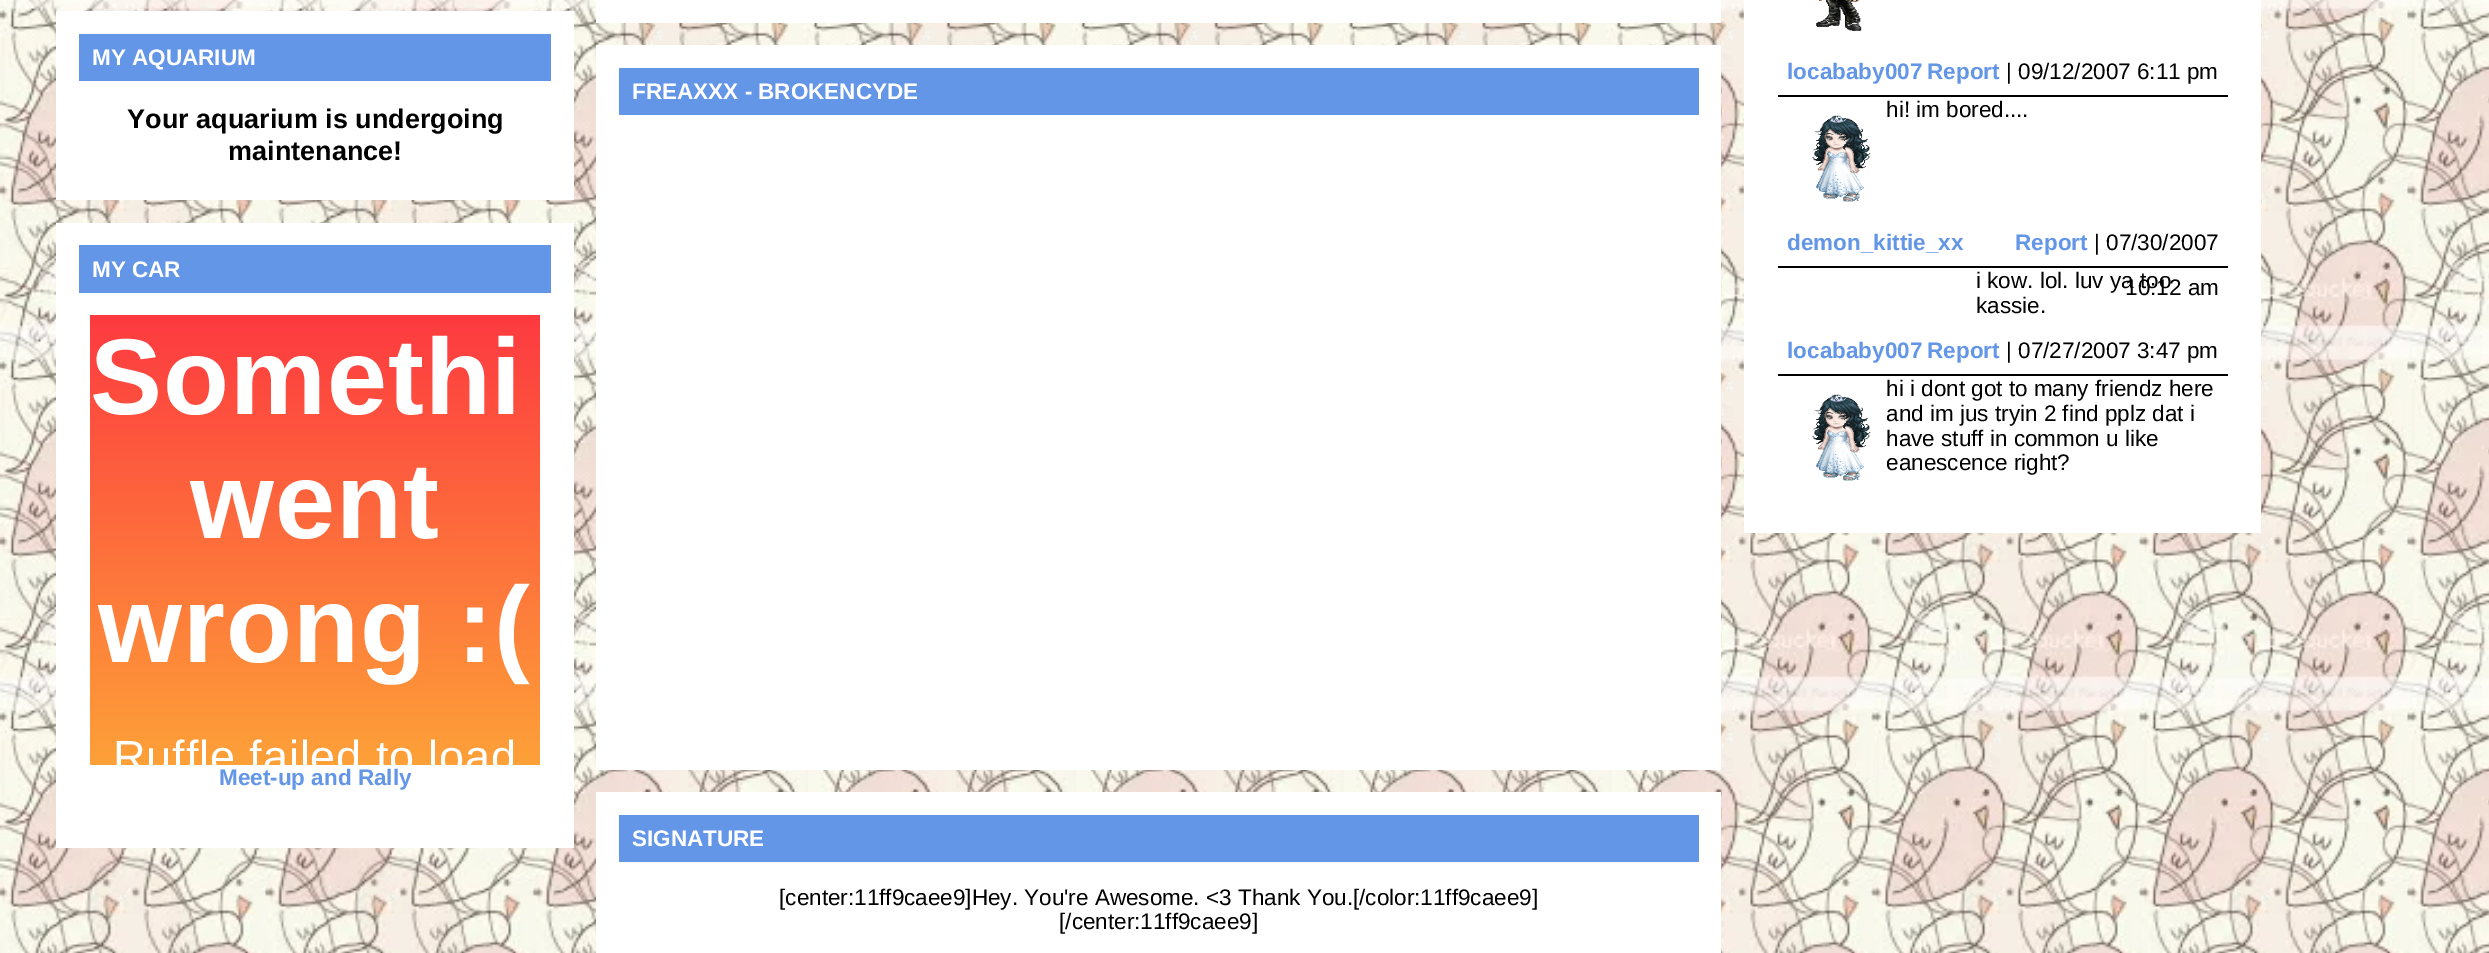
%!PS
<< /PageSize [2489 953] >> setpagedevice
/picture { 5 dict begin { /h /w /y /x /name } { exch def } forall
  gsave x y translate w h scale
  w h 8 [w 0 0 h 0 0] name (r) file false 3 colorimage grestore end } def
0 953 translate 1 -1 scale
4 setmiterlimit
1 setgray
0 0 2489 953 rectfill
(img1.rgb) 0 0 2489 953 picture
56 11 518 189 rectfill
0.388 0.588 0.906 setrgbcolor
79 34 472 47 rectfill
/LiberationSans-Bold [22.5 0 0 -22.5 0 0] selectfont
1 setgray
92 65 moveto (MY AQUARIUM) show
/LiberationSans-Bold [27 0 0 -27 0 0] selectfont
0 setgray
127 128 moveto (Your aquarium is undergoing) show
228 160 moveto (maintenance!) show
1 setgray
56 223 518 625 rectfill
0.388 0.588 0.906 setrgbcolor
79 245 472 48 rectfill
/LiberationSans-Bold [22.5 0 0 -22.5 0 0] selectfont
1 setgray
92 277 moveto (MY CAR) show
gsave newpath 90 315 moveto 540 315 lineto 540 765 lineto 90 765 lineto closepath clip newpath
<< /ShadingType 2 /ColorSpace /DeviceRGB /Coords [315 315 315 765] /Extend [true true] /Function << /FunctionType 2 /Domain [0 1] /C0 [0.992 0.227 0.251] /C1 [0.992 0.631 0.22] /N 1 >> >> shfill grestore
/LiberationSans-Bold [108 0 0 -108 0 0] selectfont
90 414 moveto 0.9 0 (Somethi) ashow
190 538 moveto 0.9 0 (went) ashow
98 662 moveto 0.9 0 (wrong :\() ashow
gsave
90 315 450 450 rectclip
/LiberationSans-Regular [45 0 0 -45 0 0] selectfont
113 772 moveto 0.9 0 (Ruffle failed to load) ashow
grestore
/LiberationSans-Bold [22.5 0 0 -22.5 0 0] selectfont
0.388 0.588 0.906 setrgbcolor
219 785 moveto (Meet-up and Rally) show
1 setgray
596 0 1125 23 rectfill
596 45 1125 725 rectfill
0.388 0.588 0.906 setrgbcolor
619 68 1080 47 rectfill
1 setgray
632 99 moveto (FREAXXX - BROKENCYDE) show
596 792 1125 161 rectfill
0.388 0.588 0.906 setrgbcolor
619 815 1080 47 rectfill
1 setgray
632 846 moveto (SIGNATURE) show
/LiberationSans-Regular [22.5 0 0 -22.5 0 0] selectfont
0 setgray
779 905 moveto ([center:11ff9caee9]Hey. You're Awesome. <3 Thank You.[/color:11ff9caee9]) show
1059 929 moveto ([/center:11ff9caee9]) show
1 setgray
1744 0 517 533 rectfill
(img2.rgb) 1816 0 46 31 picture
0 setgray
1778 95 450 2 rectfill
/LiberationSans-Bold [22.5 0 0 -22.5 0 0] selectfont
0.388 0.588 0.906 setrgbcolor
1787 79 moveto (locababy007) show
1927 79 moveto (Report) show
/LiberationSans-Regular [22.5 0 0 -22.5 0 0] selectfont
0 setgray
2006 79 moveto (| 09/12/2007 6:11 pm) show
1886 117 moveto (hi! im bored....) show
(img3.rgb) 1812 115 59 87 picture
1778 266 450 2 rectfill
/LiberationSans-Bold [22.5 0 0 -22.5 0 0] selectfont
0.388 0.588 0.906 setrgbcolor
1787 250 moveto (demon_kittie_xx) show
2015 250 moveto (Report) show
/LiberationSans-Regular [22.5 0 0 -22.5 0 0] selectfont
0 setgray
2094 250 moveto (| 07/30/2007) show
2125 295 moveto (10:12 am) show
1976 288 moveto (i kow. lol. luv ya too) show
1976 313 moveto (kassie.) show
1778 374 450 2 rectfill
/LiberationSans-Bold [22.5 0 0 -22.5 0 0] selectfont
0.388 0.588 0.906 setrgbcolor
1787 358 moveto (locababy007) show
1927 358 moveto (Report) show
/LiberationSans-Regular [22.5 0 0 -22.5 0 0] selectfont
0 setgray
2006 358 moveto (| 07/27/2007 3:47 pm) show
(img4.rgb) 1812 394 59 87 picture
1886 396 moveto (hi i dont got to many friendz here) show
1886 421 moveto (and im jus tryin 2 find pplz dat i) show
1886 446 moveto (have stuff in common u like) show
1886 470 moveto (eanescence right?) show
showpage
